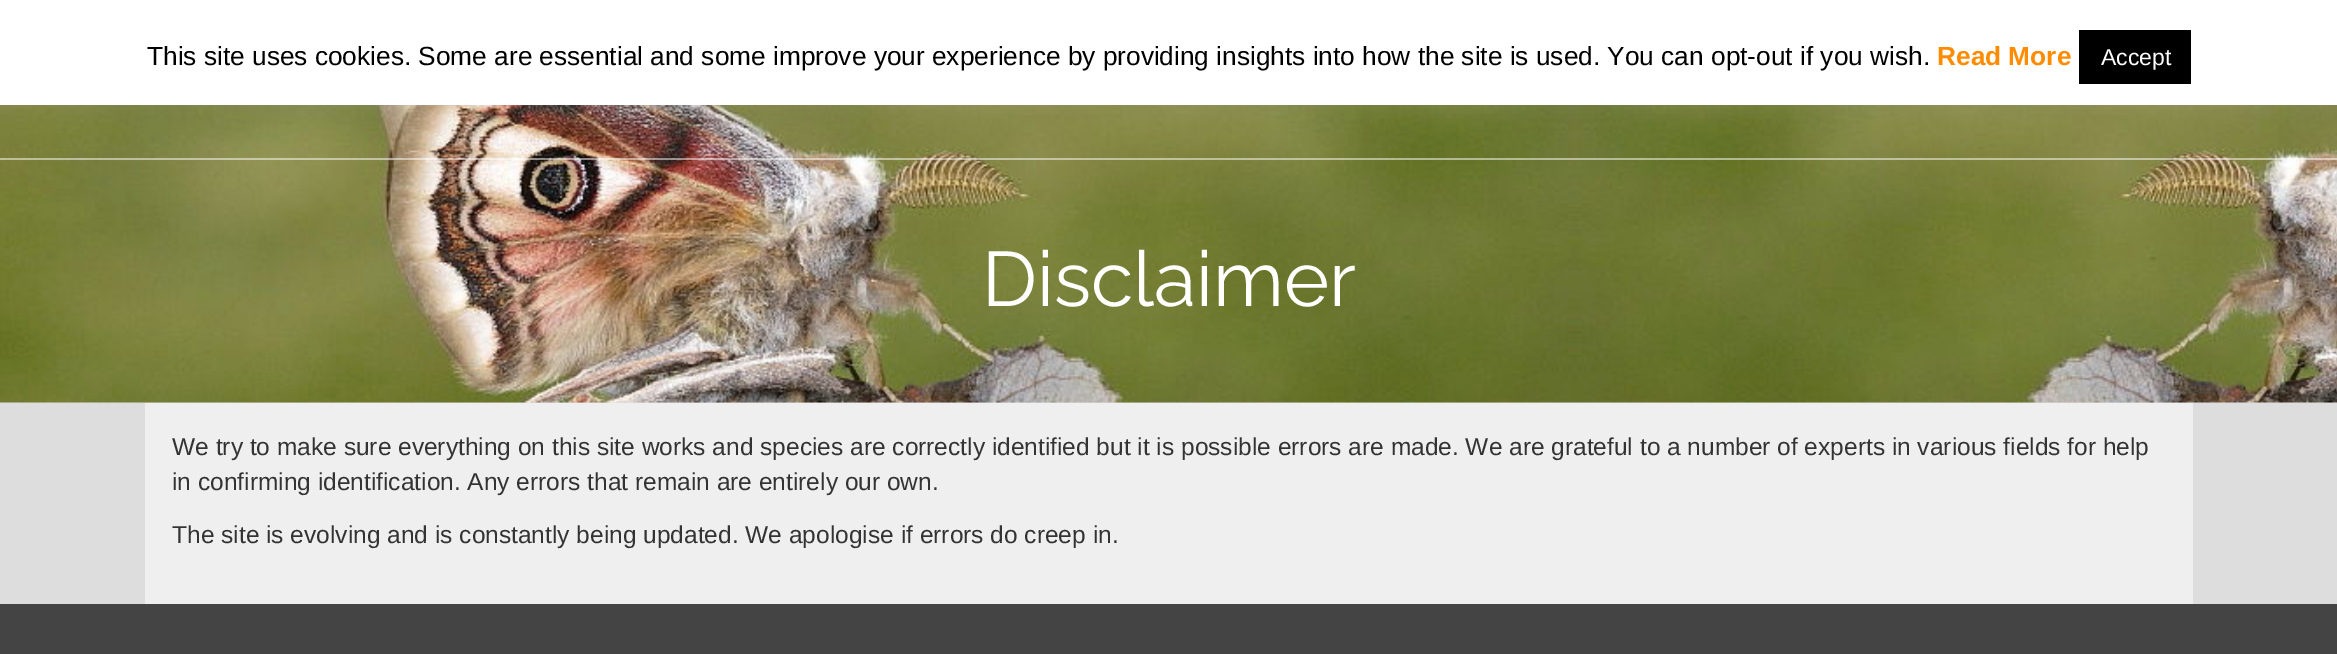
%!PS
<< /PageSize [2337 654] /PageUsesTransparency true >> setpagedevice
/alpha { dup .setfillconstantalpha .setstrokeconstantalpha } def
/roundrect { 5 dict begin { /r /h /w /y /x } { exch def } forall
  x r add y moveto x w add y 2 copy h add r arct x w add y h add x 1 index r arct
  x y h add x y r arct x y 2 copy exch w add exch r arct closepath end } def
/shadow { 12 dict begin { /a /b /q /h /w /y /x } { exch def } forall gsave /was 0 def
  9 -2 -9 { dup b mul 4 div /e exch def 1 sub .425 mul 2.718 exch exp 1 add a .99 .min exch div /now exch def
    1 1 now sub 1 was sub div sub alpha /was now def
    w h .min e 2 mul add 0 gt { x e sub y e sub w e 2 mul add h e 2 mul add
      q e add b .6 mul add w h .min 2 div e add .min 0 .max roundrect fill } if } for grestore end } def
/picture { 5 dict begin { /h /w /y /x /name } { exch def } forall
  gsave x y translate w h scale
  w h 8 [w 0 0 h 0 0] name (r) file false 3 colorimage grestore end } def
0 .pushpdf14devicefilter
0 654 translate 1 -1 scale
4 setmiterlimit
0.867 setgray
0 0 2337 654 rectfill
(img1.rgb) 0 105 2337 298 picture
0.675 0.671 0.671 setrgbcolor
0 -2 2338 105 0 9 0.3 shadow
1 setgray
0 0 2337 105 rectfill
/LiberationSans-Regular [26.25 0 0 -26.25 0 0] selectfont
0 setgray
147 65 moveto (This site uses cookies. Some are essential and some improve your experience by providing insights into how the site is used. You can opt-out if you wish.) show
/LiberationSans-Bold [26.25 0 0 -26.25 0 0] selectfont
1 0.549 0 setrgbcolor
1937 65 moveto (Read More) show
0 setgray
2079 30 112 54 rectfill
/LiberationSans-Regular [23 0 0 -23 0 0] selectfont
1 setgray
2101 65 moveto (Accept) show
0.5 alpha
0 158 2337 2 rectfill
/Raleway-Thin [77 0 0 -77 0 0] selectfont
1 alpha
982 306 moveto (Disclaimer) show
0.937 setgray
145 403 2048 201 rectfill
/LiberationSans-Regular [24.5 0 0 -24.5 0 0] selectfont
0.2 setgray
172 455 moveto (We try to make sure everything on this site works and species are correctly identified but it is possible errors are made. We are grateful to a number of experts in various fields for help) show
172 490 moveto (in confirming identification. Any errors that remain are entirely our own.) show
172 543 moveto (The site is evolving and is constantly being updated. We apologise if errors do creep in.) show
0.267 setgray
0 604 2337 50 rectfill
.poppdf14devicefilter showpage
